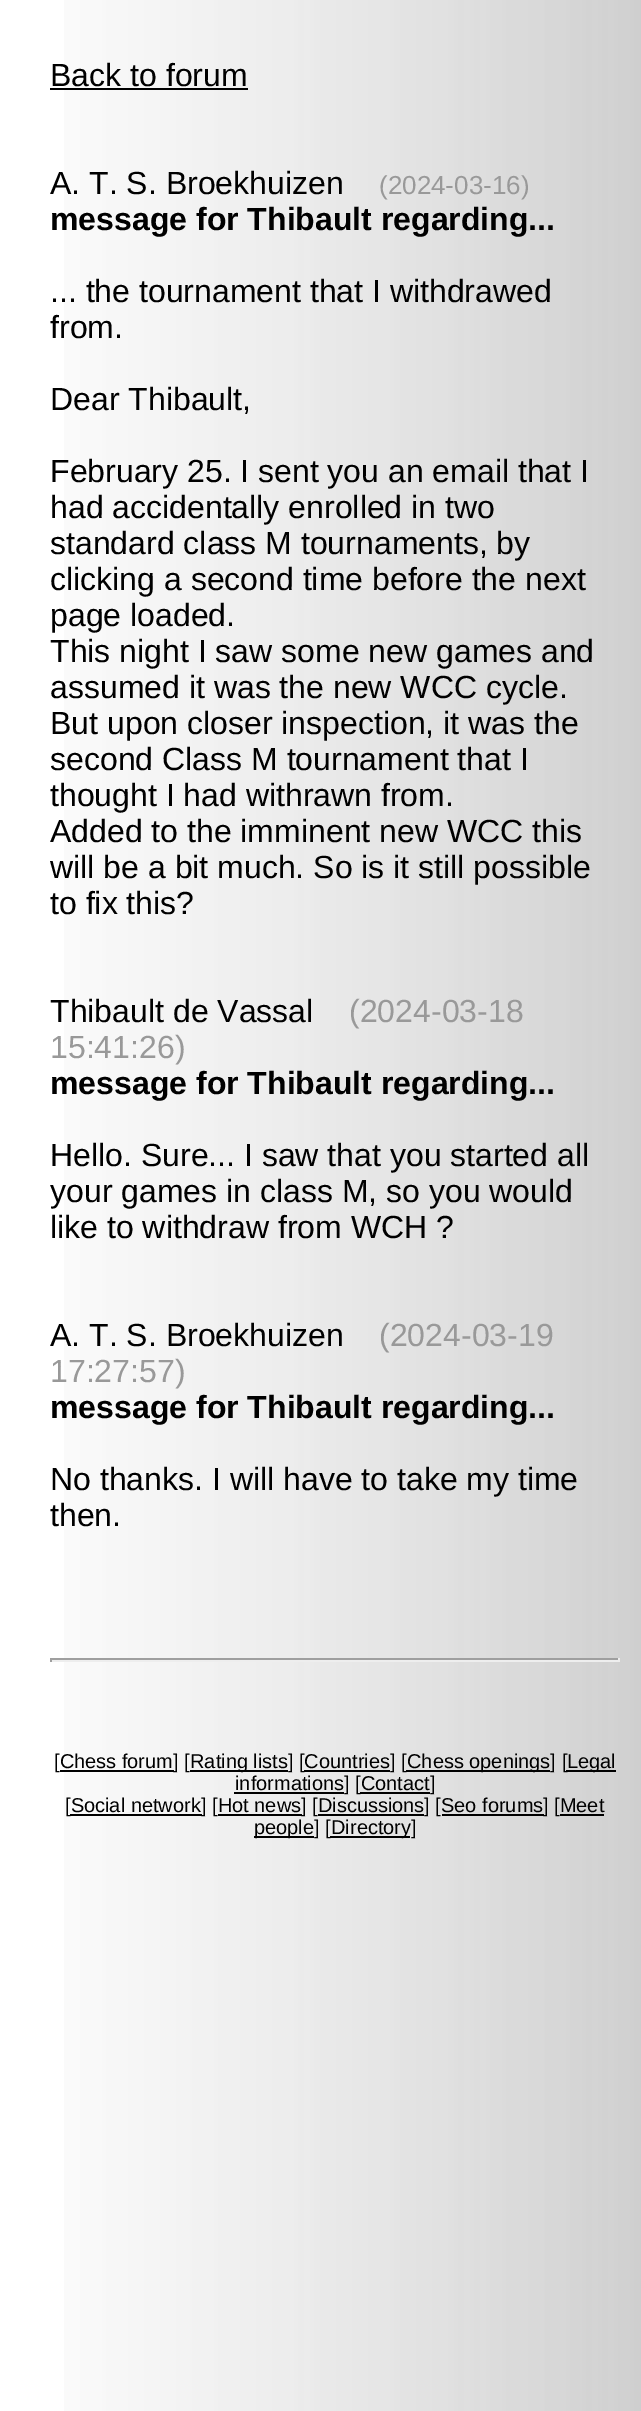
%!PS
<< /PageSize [641 2411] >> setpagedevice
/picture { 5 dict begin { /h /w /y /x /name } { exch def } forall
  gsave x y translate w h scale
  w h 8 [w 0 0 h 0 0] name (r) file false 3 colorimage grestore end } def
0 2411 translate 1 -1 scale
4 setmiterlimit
1 setgray
0 0 641 2411 rectfill
(img1.rgb) 64 0 577 2411 picture
/LiberationSans-Regular [32 0 0 -32 0 0] selectfont
0 setgray
50 86 moveto (Back to forum) show
50 88 198 2 rectfill
50 194 moveto (A. T. S. Broekhuizen) show
/LiberationSans-Regular [26 0 0 -26 0 0] selectfont
0.6 setgray
379 194 moveto (\(2024-03-16\)) show
/LiberationSans-Bold [32 0 0 -32 0 0] selectfont
0 setgray
50 230 moveto (message for Thibault regarding...) show
/LiberationSans-Regular [32 0 0 -32 0 0] selectfont
50 302 moveto (... the tournament that I withdrawed) show
50 338 moveto (from.) show
50 410 moveto (Dear Thibault,) show
50 482 moveto (February 25. I sent you an email that I) show
50 518 moveto (had accidentally enrolled in two) show
50 554 moveto (standard class M tournaments, by) show
50 590 moveto (clicking a second time before the next) show
50 626 moveto (page loaded.) show
50 662 moveto (This night I saw some new games and) show
50 698 moveto (assumed it was the new WCC cycle.) show
50 734 moveto (But upon closer inspection, it was the) show
50 770 moveto (second Class M tournament that I) show
50 806 moveto (thought I had withrawn from.) show
50 842 moveto (Added to the imminent new WCC this) show
50 878 moveto (will be a bit much. So is it still possible) show
50 914 moveto (to fix this?) show
50 1022 moveto (Thibault de Vassal) show
0.6 setgray
349 1022 moveto (\(2024-03-18) show
50 1058 moveto (15:41:26\)) show
/LiberationSans-Bold [32 0 0 -32 0 0] selectfont
0 setgray
50 1094 moveto (message for Thibault regarding...) show
/LiberationSans-Regular [32 0 0 -32 0 0] selectfont
50 1166 moveto (Hello. Sure... I saw that you started all) show
50 1202 moveto (your games in class M, so you would) show
50 1238 moveto (like to withdraw from WCH ?) show
50 1346 moveto (A. T. S. Broekhuizen) show
0.6 setgray
379 1346 moveto (\(2024-03-19) show
50 1382 moveto (17:27:57\)) show
/LiberationSans-Bold [32 0 0 -32 0 0] selectfont
0 setgray
50 1418 moveto (message for Thibault regarding...) show
/LiberationSans-Regular [32 0 0 -32 0 0] selectfont
50 1490 moveto (No thanks. I will have to take my time) show
50 1526 moveto (then.) show
0.624 setgray
50 1658 570 2 rectfill
0.933 setgray
618 1658 2 4 rectfill
50 1660 570 2 rectfill
0.624 setgray
50 1658 2 4 rectfill
/LiberationSans-Regular [20 0 0 -20 0 0] selectfont
0 setgray
54 1768 moveto ([Chess forum) show
60 1770 114 2 rectfill
173 1768 moveto (] [) show
190 1770 98 2 rectfill
190 1768 moveto (Rating lists] [Countries] [) show
304 1770 86 2 rectfill
406 1770 144 2 rectfill
407 1768 moveto (Chess openings] [) show
566 1770 50 2 rectfill
567 1768 moveto (Legal) show
234 1792 110 2 rectfill
235 1790 moveto (informations] [Contact) show
360 1792 70 2 rectfill
430 1790 moveto (]) show
65 1812 moveto ([Social network) show
70 1814 132 2 rectfill
201 1812 moveto (] [Hot news) show
218 1814 84 2 rectfill
301 1812 moveto (] [Discussions] [Seo forums) show
318 1814 106 2 rectfill
442 1814 102 2 rectfill
543 1812 moveto (] [Meet) show
560 1814 44 2 rectfill
254 1836 60 2 rectfill
254 1834 moveto (people] [) show
330 1836 80 2 rectfill
331 1834 moveto (Directory]) show
showpage
